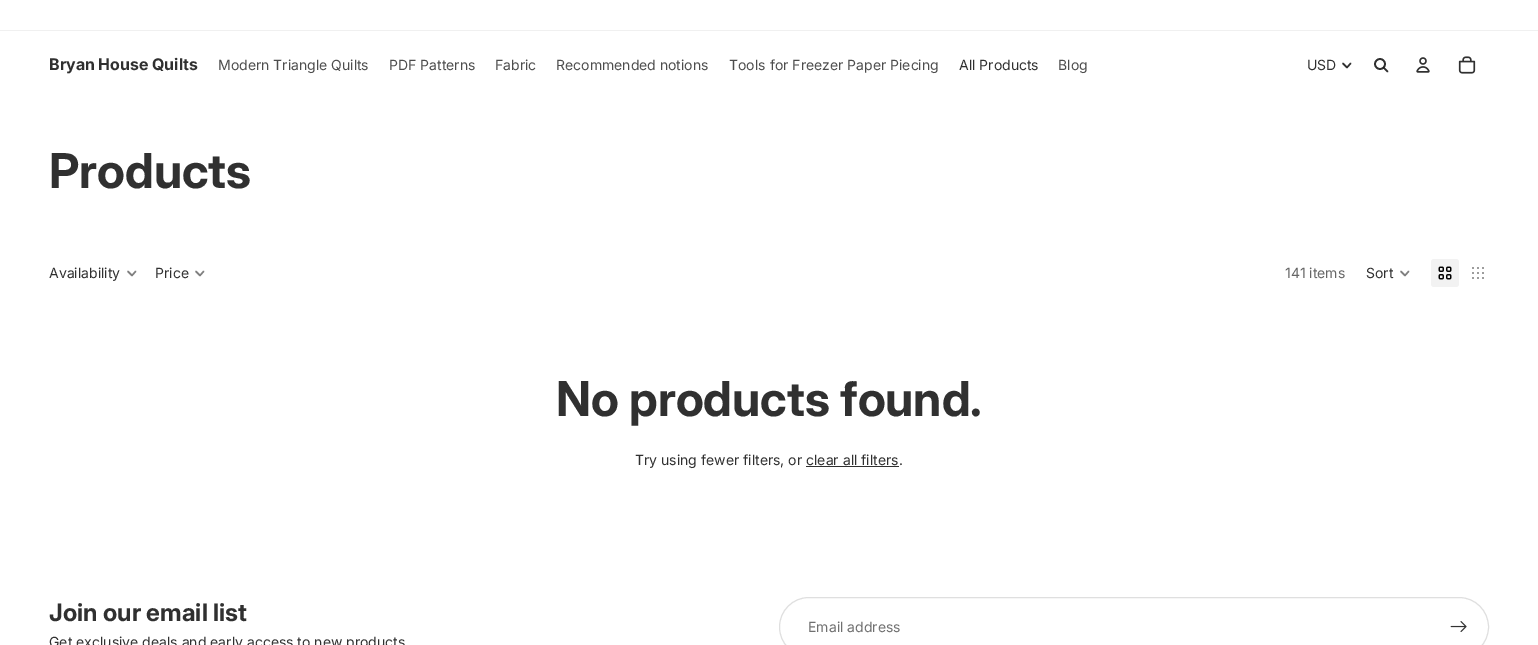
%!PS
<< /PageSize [1538 645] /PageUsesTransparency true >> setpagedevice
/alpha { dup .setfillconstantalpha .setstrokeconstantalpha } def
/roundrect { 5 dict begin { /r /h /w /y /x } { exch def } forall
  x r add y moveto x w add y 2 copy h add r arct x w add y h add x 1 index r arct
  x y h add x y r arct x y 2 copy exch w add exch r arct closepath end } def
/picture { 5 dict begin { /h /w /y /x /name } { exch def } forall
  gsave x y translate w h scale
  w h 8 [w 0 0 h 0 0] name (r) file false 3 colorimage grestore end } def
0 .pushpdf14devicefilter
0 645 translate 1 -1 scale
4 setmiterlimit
1 setgray
0 0 1538 645 rectfill
0.941 setgray
0 30 1538 1 rectfill
/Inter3-Bold [16 0 0 -16 0 0] selectfont
0.188 setgray
49 70 moveto (Bryan House Quilts) show
/Inter-Regular [14 0 0 -14 0 0] selectfont
0.302 setgray
218 70 moveto (Modern Triangle Quilts) show
389 70 moveto (PDF Patterns) show
495 70 moveto (Fabric) show
556 70 moveto (Recommended notions) show
729 70 moveto (Tools for Freezer Paper Piecing) show
0.188 setgray
959 70 moveto (All Products) show
0.302 setgray
1058 70 moveto (Blog) show
0.188 setgray
1307 70 moveto (USD) show
1.5 setlinewidth
1 setlinecap
1 setlinejoin
newpath 1350.5 63.5 moveto 1347 67.5 lineto 1343 63.5 lineto stroke
1.7 setlinewidth
0 setlinecap
0 setlinejoin
newpath 1380 64 5 0 360 arc closepath stroke
0.81 alpha
0 setgray
1 setlinecap
1 setlinejoin
newpath 1384 68 moveto 1387.5 71.5 lineto stroke
1 alpha
(img1.rgb) 1416 57 14 16 picture
(img2.rgb) 1458 56 18 18 picture
/Inter-Bold [48 0 0 -48 0 0] selectfont
0.188 setgray
49 188 moveto (Products) show
/Inter-Regular [14 0 0 -14 0 0] selectfont
49 278 moveto (Availability) show
0.502 setgray
1.5 setlinewidth
newpath 135.5 271.5 moveto 132 275.5 lineto 128 271.5 lineto stroke
0.188 setgray
155 278 moveto (Price) show
0.502 setgray
newpath 203.5 271.5 moveto 200 275.5 lineto 196 271.5 lineto stroke
0.4 setgray
1285 278 moveto (141 items) show
0.188 setgray
1366 278 moveto (Sort) show
0.502 setgray
newpath 1408.5 271.5 moveto 1405 275.5 lineto 1401 271.5 lineto stroke
0.949 setgray
1431 259 28 28 3 roundrect fill
(img3.rgb) 1438 266 14 14 picture
(img4.rgb) 1472 267 12 12 picture
/Inter-Bold [48 0 0 -48 0 0] selectfont
0.188 setgray
556 416 moveto (No products found.) show
/Inter-Regular [14 0 0 -14 0 0] selectfont
635 465 moveto (Try using fewer filters, or clear all filters.) show
806 466 93 1 rectfill
/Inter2-Bold [24 0 0 -24 0 0] selectfont
49 621 moveto (Join our email list) show
/Inter-Regular [14 0 0 -14 0 0] selectfont
49 647 moveto (Get exclusive deals and early access to new products) show
0.875 setgray
1 setlinewidth
0 setlinecap
0 setlinejoin
779.5 597.5 709 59 29.5 roundrect stroke
0.439 setgray
808 632 moveto (Email address) show
(img5.rgb) 1450 621 17 11 picture
.poppdf14devicefilter showpage
